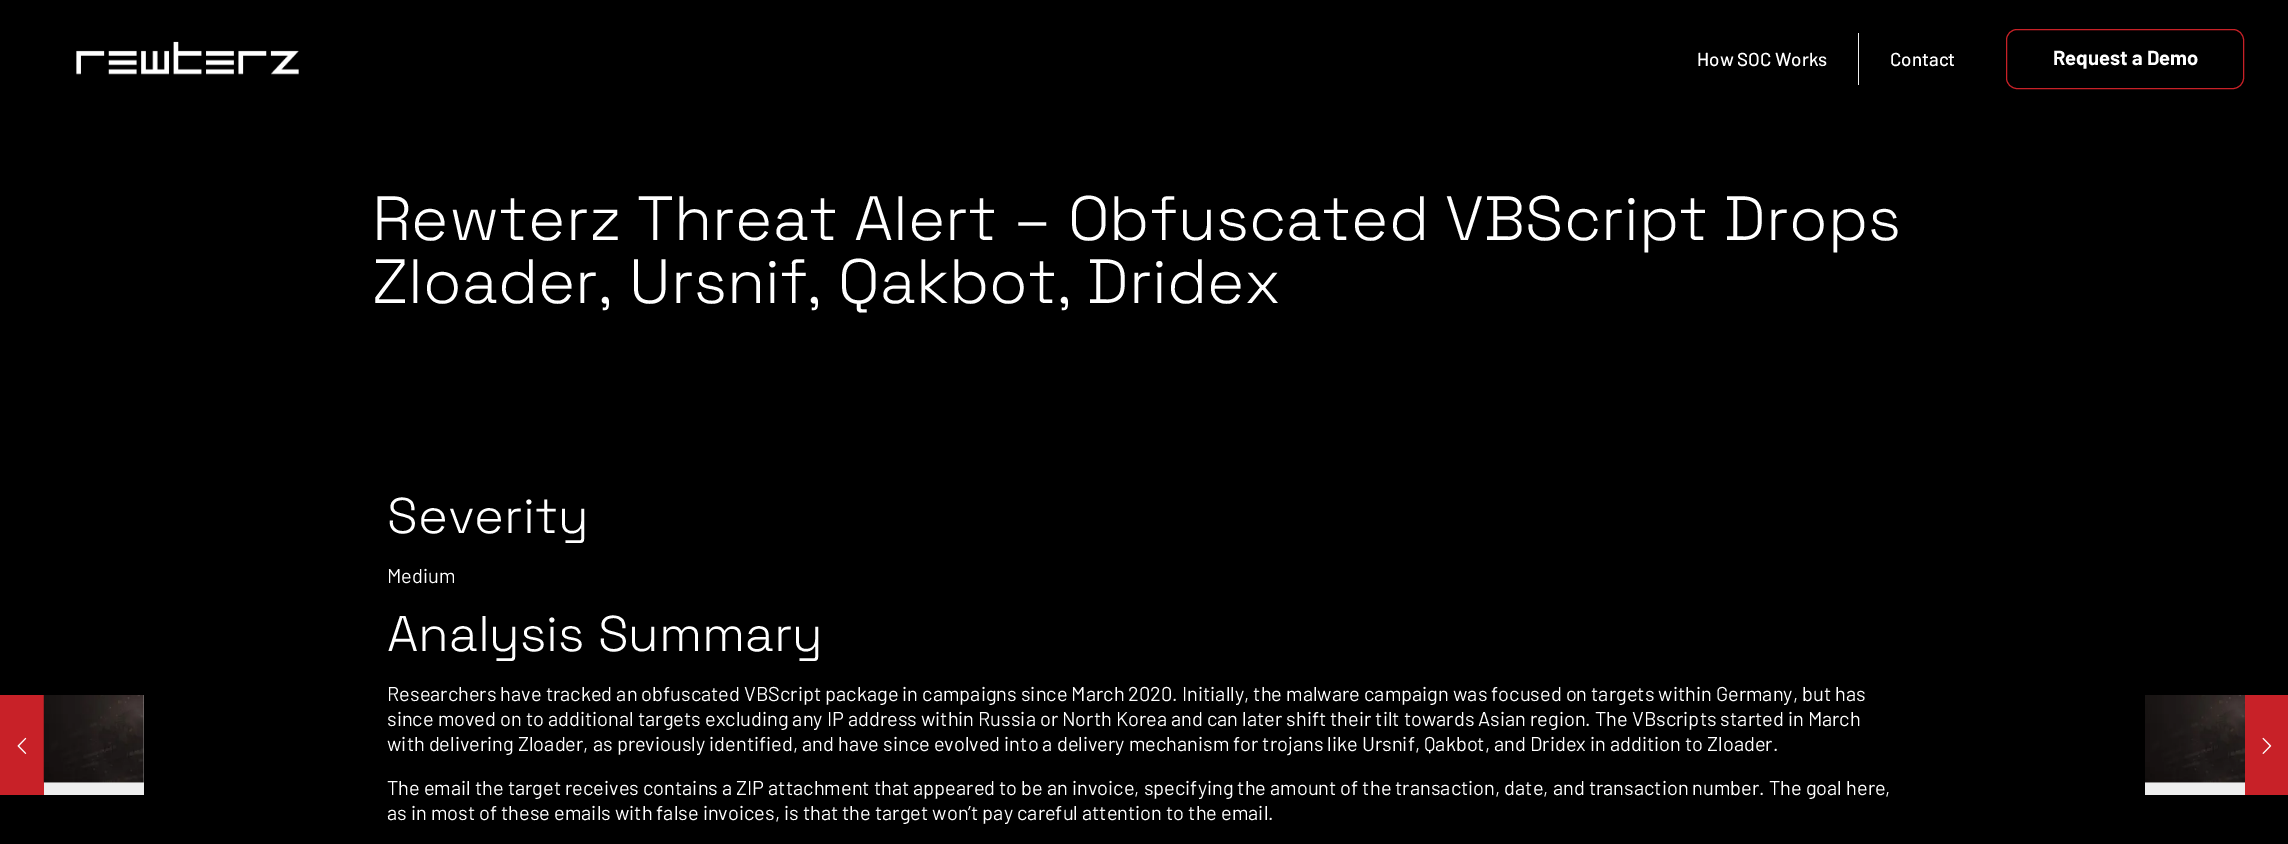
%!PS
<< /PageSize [2288 844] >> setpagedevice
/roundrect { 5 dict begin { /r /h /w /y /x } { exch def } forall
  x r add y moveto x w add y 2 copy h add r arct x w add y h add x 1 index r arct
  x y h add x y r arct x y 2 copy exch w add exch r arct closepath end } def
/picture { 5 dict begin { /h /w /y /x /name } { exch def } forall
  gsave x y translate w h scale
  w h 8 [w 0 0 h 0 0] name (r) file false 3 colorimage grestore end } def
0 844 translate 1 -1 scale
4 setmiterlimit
0 setgray
0 0 2288 844 rectfill
0.784 0.129 0.157 setrgbcolor
0 695 44 100 rectfill
(img1.rgb) 17 737 10 17 picture
0.933 setgray
44 695 100 100 rectfill
(img2.rgb) 43 695 101 88 picture
(img3.rgb) 76 41 223 34 picture
/Barlow-Medium [18.75 0 0 -18.75 0 0] selectfont
1 setgray
1697 66 moveto (How SOC Works) show
0.941 setgray
1858 33 1 52 rectfill
1 setgray
1890 66 moveto (Contact) show
0.784 0.129 0.153 setrgbcolor
2006.5 29.5 237 59 10.5 roundrect stroke
/Barlow-Bold [20.25 0 0 -20.25 0 0] selectfont
1 setgray
2053 65 moveto (Request a Demo) show
/SpaceGrotesk-Light [62.5 0 0 -62.5 0 0] selectfont
372 240 moveto (Rewterz Threat Alert – Obfuscated VBScript Drops) show
372 303 moveto (Zloader, Ursnif, Qakbot, Dridex) show
/SpaceGrotesk-Light [50 0 0 -50 0 0] selectfont
387 533 moveto (Severity) show
/Barlow-Regular [20 0 0 -20 0 0] selectfont
387 583 moveto (Medium) show
/SpaceGrotesk-Light [50 0 0 -50 0 0] selectfont
387 651 moveto (Analysis Summary) show
/Barlow-Regular [20 0 0 -20 0 0] selectfont
387 701 moveto (Researchers have tracked an obfuscated VBScript package in campaigns since March 2020. Initially, the malware campaign was focused on targets within Germany, but has) show
387 726 moveto (since moved on to additional targets excluding any IP address within Russia or North Korea and can later shift their tilt towards Asian region. The VBscripts started in March) show
387 751 moveto (with delivering Zloader, as previously identified, and have since evolved into a delivery mechanism for trojans like Ursnif, Qakbot, and Dridex in addition to Zloader.) show
387 795 moveto (The email the target receives contains a ZIP attachment that appeared to be an invoice, specifying the amount of the transaction, date, and transaction number. The goal here,) show
387 820 moveto (as in most of these emails with false invoices, is that the target won’t pay careful attention to the email.) show
0.933 setgray
2145 782 100 13 rectfill
(img4.rgb) 2145 695 100 88 picture
0.784 0.129 0.157 setrgbcolor
2245 695 43 100 rectfill
(img5.rgb) 2262 737 10 17 picture
showpage
